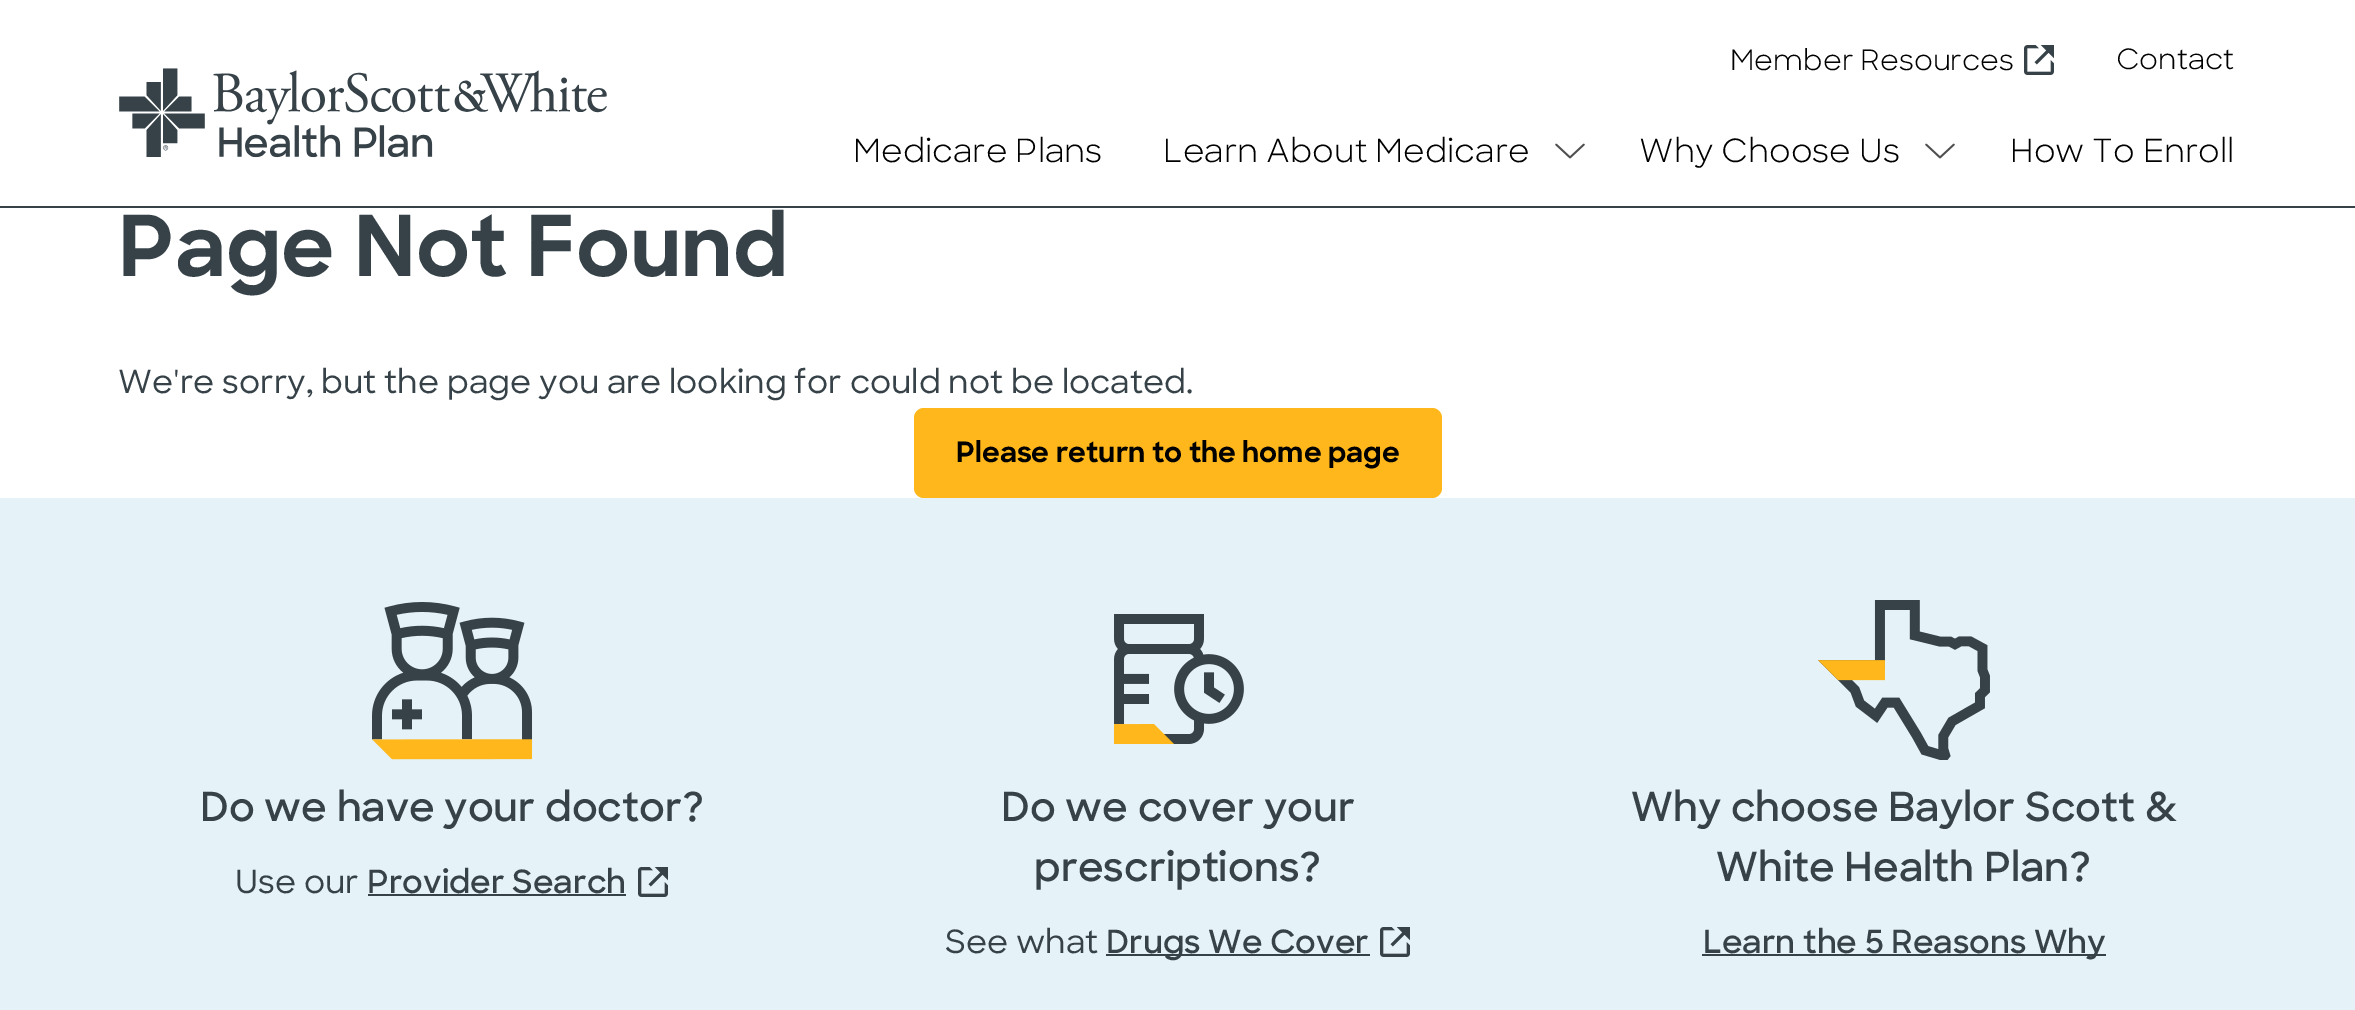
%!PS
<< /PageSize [2355 1010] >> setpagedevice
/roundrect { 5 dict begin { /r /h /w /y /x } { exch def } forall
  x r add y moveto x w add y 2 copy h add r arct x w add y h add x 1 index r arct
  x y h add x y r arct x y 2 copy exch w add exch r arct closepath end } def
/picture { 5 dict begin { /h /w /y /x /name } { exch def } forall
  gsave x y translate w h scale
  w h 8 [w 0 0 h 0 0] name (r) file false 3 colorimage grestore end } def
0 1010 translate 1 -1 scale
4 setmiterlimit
1 setgray
0 0 2355 1010 rectfill
0.212 0.259 0.282 setrgbcolor
0 206 2355 2 rectfill
(img1.rgb) 119 68 488 90 picture
/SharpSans-Regular [28 0 0 -28 0 0] selectfont
0 setgray
1730 70 moveto (Member Resources) show
(img2.rgb) 2024 45 30 30 picture
2116 69 moveto (Contact) show
/SharpSans-Regular [32 0 0 -32 0 0] selectfont
853 162 moveto (Medicare Plans) show
1163 162 moveto (Learn About Medicare) show
(img3.rgb) 1555 143 30 16 picture
1639 162 moveto (Why Choose Us) show
(img3.rgb) 1925 143 30 16 picture
2010 162 moveto (How To Enroll) show
/SharpSans-Bold [84 0 0 -84 0 0] selectfont
0.212 0.259 0.282 setrgbcolor
118 276 moveto (Page Not Found) show
/SharpSans-Medium [32 0 0 -32 0 0] selectfont
118 393 moveto (We're sorry, but the page you are looking for could not be located.) show
1 0.718 0.106 setrgbcolor
914 408 528 90 10 roundrect fill
/SharpSans-Bold [28 0 0 -28 0 0] selectfont
0 setgray
956 462 moveto (Please return to the home page) show
0.898 0.949 0.969 setrgbcolor
0 498 2355 512 rectfill
(img4.rgb) 372 602 161 158 picture
/SharpSans-SemiBold [40 0 0 -40 0 0] selectfont
0.212 0.259 0.282 setrgbcolor
200 821 moveto (Do we have your doctor?) show
/SharpSans-Medium [32 0 0 -32 0 0] selectfont
235 893 moveto (Use our) show
/SharpSans-SemiBold [32 0 0 -32 0 0] selectfont
367 893 moveto (Provider Search) show
368 894 258 2 rectfill
(img5.rgb) 638 867 30 30 picture
(img6.rgb) 1114 614 130 130 picture
/SharpSans-SemiBold [40 0 0 -40 0 0] selectfont
1001 821 moveto (Do we cover your) show
1034 881 moveto (prescriptions?) show
/SharpSans-Medium [32 0 0 -32 0 0] selectfont
945 953 moveto (See what) show
1106 954 264 2 rectfill
/SharpSans-SemiBold [32 0 0 -32 0 0] selectfont
1106 953 moveto (Drugs We Cover) show
(img5.rgb) 1380 927 30 30 picture
(img7.rgb) 1818 600 172 160 picture
/SharpSans-SemiBold [40 0 0 -40 0 0] selectfont
1631 821 moveto (Why choose Baylor Scott &) show
1716 881 moveto (White Health Plan?) show
1702 954 404 2 rectfill
/SharpSans-SemiBold [32 0 0 -32 0 0] selectfont
1703 953 moveto (Learn the 5 Reasons Why) show
showpage
